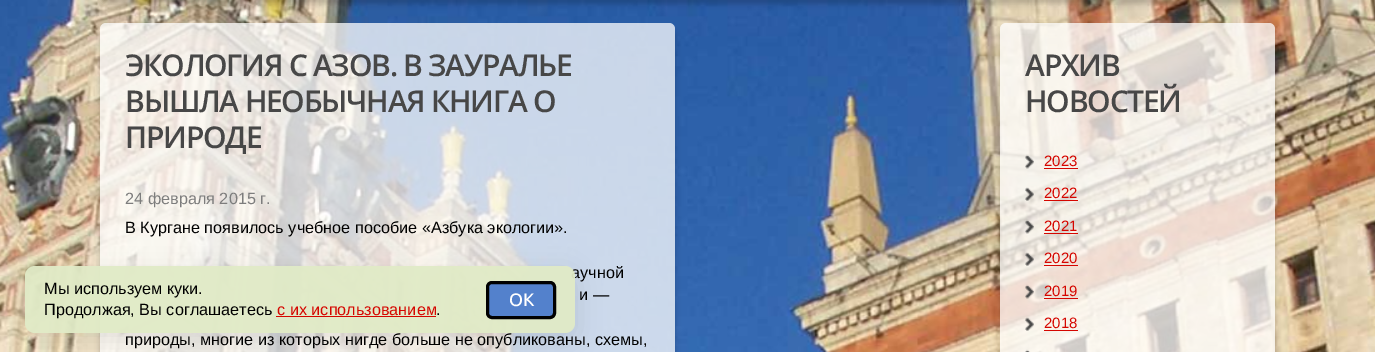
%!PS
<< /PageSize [1375 352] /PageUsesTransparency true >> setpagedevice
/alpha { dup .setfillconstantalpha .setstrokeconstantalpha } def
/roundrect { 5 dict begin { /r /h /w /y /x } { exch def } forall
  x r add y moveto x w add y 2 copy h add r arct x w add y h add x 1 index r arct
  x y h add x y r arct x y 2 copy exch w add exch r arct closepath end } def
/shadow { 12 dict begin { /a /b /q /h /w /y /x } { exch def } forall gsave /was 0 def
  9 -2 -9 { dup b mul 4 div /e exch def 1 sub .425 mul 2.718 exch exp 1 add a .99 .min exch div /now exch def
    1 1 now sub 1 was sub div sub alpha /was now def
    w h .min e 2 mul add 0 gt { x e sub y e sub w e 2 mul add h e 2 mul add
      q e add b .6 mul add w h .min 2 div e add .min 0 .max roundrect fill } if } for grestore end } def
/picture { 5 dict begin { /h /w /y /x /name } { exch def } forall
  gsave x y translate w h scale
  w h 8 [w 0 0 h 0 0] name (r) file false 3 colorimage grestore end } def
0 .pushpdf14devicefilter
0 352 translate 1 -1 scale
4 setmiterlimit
1 setgray
0 0 1375 352 rectfill
(img1.rgb) 0 0 1375 352 picture
0 setgray
100 -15 1175 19 6 3 0.2 shadow
gsave
newpath 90 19 moveto 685 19 lineto 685 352 lineto 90 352 lineto closepath 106 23 moveto 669 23 lineto 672.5 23 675 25.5 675 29 curveto 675 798 lineto 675 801.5 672.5 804 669 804 curveto 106 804 lineto 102.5 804 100 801.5 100 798 curveto 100 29 lineto 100 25.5 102.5 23 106 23 curveto closepath eoclip newpath
100 29 575 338 6 3 0.2 shadow
grestore
0.75 alpha
1 setgray
100 23 575 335 6 roundrect fill
/OpenSans-SemiBold [30 0 0 -30 0 0] selectfont
1 alpha
0.278 setgray
125 76 moveto -1.25 0 (ЭКОЛОГИЯ С АЗОВ. В ЗАУРАЛЬЕ) ashow
125 112 moveto -1.25 0 (ВЫШЛА НЕОБЫЧНАЯ КНИГА О) ashow
125 148 moveto -1.25 0 (ПРИРОДЕ) ashow
/LiberationSans-Regular [16.25 0 0 -16.25 0 0] selectfont
0.49 setgray
125 204 moveto (24 февраля 2015 г.) show
0 setgray
125 233 moveto (В Кургане появилось учебное пособие «Азбука экологии».) show
571 278 moveto (аучной) show
579 300 moveto (и —) show
125 345 moveto (природы, многие из которых нигде больше не опубликованы, схемы,) show
gsave
newpath 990 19 moveto 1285 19 lineto 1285 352 lineto 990 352 lineto closepath 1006 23 moveto 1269 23 lineto 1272.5 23 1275 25.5 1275 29 curveto 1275 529 lineto 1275 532.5 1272.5 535 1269 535 curveto 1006 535 lineto 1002.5 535 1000 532.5 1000 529 curveto 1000 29 lineto 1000 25.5 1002.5 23 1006 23 curveto closepath eoclip newpath
1000 29 275 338 6 3 0.2 shadow
grestore
0.75 alpha
1 setgray
1000 23 275 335 6 roundrect fill
/OpenSans-SemiBold [30 0 0 -30 0 0] selectfont
1 alpha
0.278 setgray
1025 76 moveto -1.25 0 (АРХИВ) ashow
1025 112 moveto -1.25 0 (НОВОСТЕЙ) ashow
(img2.rgb) 1025 154 9 15 picture
/LiberationSans-Regular [15 0 0 -15 0 0] selectfont
0.835 0.024 0 setrgbcolor
1044 166 moveto (2023) show
1044 168 34 1 rectfill
(img3.rgb) 1025 187 9 14 picture
1044 198 moveto (2022) show
1044 200 34 1 rectfill
(img4.rgb) 1025 219 9 15 picture
1044 231 moveto (2021) show
1044 233 34 1 rectfill
(img5.rgb) 1025 252 9 14 picture
1044 263 moveto (2020) show
1044 265 34 1 rectfill
(img6.rgb) 1025 284 9 15 picture
1044 296 moveto (2019) show
1044 298 34 1 rectfill
(img7.rgb) 1025 317 9 14 picture
1044 328 moveto (2018) show
1044 330 34 1 rectfill
(img8.rgb) 1025 349 5 3 picture
gsave
newpath 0 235 moveto 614 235 lineto 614 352 lineto 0 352 lineto closepath 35 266 moveto 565 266 lineto 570.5 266 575 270.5 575 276 curveto 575 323 lineto 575 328.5 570.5 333 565 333 curveto 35 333 lineto 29.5 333 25 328.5 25 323 curveto 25 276 lineto 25 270.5 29.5 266 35 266 curveto closepath eoclip newpath
0 setgray
25 274 550 66 10 12.5 0.1 shadow
grestore
0.95 alpha
0.878 0.918 0.776 setrgbcolor
25 266 550 67 10 roundrect fill
/LiberationSans-Regular [16.25 0 0 -16.25 0 0] selectfont
1 alpha
0 setgray
44 294 moveto (Мы используем куки.) show
44 315 moveto (Продолжая, Вы соглашаетесь) show
0.835 0.024 0 setrgbcolor
277 315 moveto (с их использованием) show
276 316 160 1 rectfill
0 setgray
436 315 moveto (.) show
0.325 0.506 0.8 setrgbcolor
487.5 282.5 67 35 4.5 roundrect gsave fill grestore
0 setgray
3 setlinewidth
stroke
/Ubuntu-Medium [18 0 0 -18 0 0] selectfont
1 setgray
509 306 moveto (ОК) show
.poppdf14devicefilter showpage
